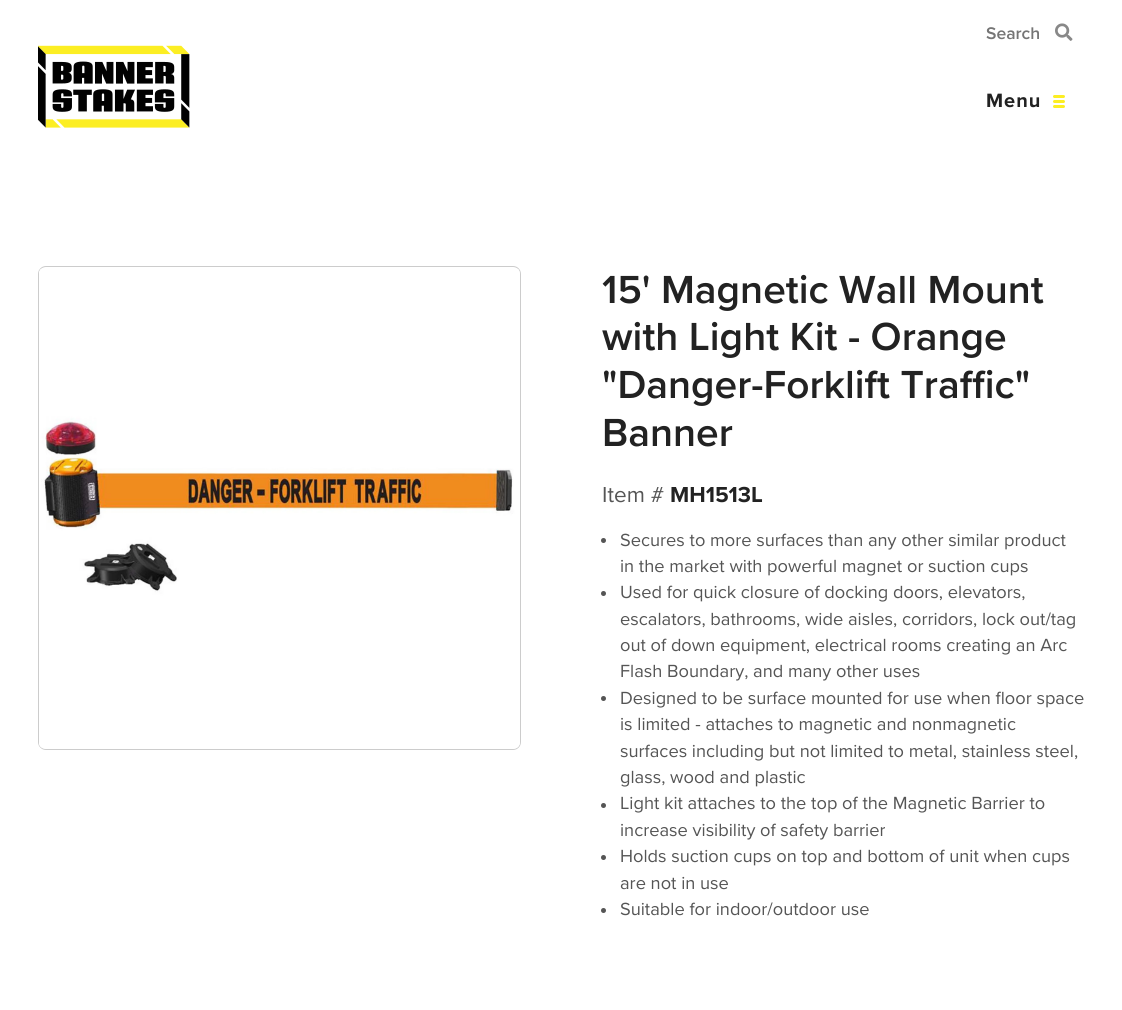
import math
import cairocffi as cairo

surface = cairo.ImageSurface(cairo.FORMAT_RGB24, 1122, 1010)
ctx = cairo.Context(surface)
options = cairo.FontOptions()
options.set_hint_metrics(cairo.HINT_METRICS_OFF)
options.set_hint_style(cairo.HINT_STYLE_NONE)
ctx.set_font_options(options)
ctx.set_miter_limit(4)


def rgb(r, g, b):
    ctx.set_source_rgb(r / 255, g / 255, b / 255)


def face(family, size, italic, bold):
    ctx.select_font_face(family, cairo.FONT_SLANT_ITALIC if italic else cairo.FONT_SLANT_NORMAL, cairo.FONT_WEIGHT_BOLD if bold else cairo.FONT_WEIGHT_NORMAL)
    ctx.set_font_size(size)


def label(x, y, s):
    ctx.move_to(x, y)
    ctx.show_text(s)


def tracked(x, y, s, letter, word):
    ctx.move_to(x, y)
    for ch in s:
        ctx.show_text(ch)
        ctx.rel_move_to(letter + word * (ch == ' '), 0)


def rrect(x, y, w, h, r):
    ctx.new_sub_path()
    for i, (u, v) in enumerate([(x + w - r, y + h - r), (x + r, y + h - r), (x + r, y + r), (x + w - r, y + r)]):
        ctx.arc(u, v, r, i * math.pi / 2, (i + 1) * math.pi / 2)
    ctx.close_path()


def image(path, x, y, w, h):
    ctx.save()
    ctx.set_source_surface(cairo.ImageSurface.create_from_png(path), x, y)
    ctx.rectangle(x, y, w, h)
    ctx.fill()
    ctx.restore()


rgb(255, 255, 255)
ctx.paint()
face('Proxima Nova SemiBold', 17.5, 0, 0)
rgb(117, 117, 117)
label(986, 39, 'Search')
image('image0.png', 1055, 23, 18, 18)
image('image1.png', 38, 45, 152, 83)
face('Proxima Nova', 20, 0, 1)
rgb(34, 34, 34)
tracked(986, 107, 'Menu', 1, 0)
rgb(252, 238, 35)
rrect(1053, 100, 12, 3, 1.5)
ctx.fill()
rrect(1053, 95, 12, 3, 1.5)
ctx.fill()
rrect(1053, 105, 12, 3, 1.5)
ctx.fill()
rrect(38.5, 266.5, 482, 483, 7.5)
rgb(204, 204, 204)
ctx.set_line_width(1)
ctx.stroke()
image('image2.png', 39, 268, 481, 481)
face('Proxima Nova SemiBold', 40.6, 0, 0)
rgb(34, 34, 34)
label(602, 303, '15\' Magnetic Wall Mount')
label(602, 350, 'with Light Kit - Orange')
label(602, 398, '"Danger-Forklift Traffic"')
label(602, 446, 'Banner')
face('Proxima Nova', 22.5, 0, 0)
rgb(85, 85, 85)
label(602, 502, 'Item #')
face('Proxima Nova', 22.5, 0, 1)
rgb(34, 34, 34)
label(670, 502, 'MH1513L')
rgb(85, 85, 85)
ctx.new_path()
ctx.arc(603.5, 540.5, 2.5, 0, 2 * math.pi)
ctx.fill()
face('Proxima Nova', 18.25, 0, 0)
label(620, 546, 'Secures to more surfaces than any other similar product')
label(620, 572, 'in the market with powerful magnet or suction cups')
ctx.new_path()
ctx.arc(603.5, 593.5, 2.5, 0, 2 * math.pi)
ctx.fill()
label(620, 598, 'Used for quick closure of docking doors, elevators,')
label(620, 625, 'escalators, bathrooms, wide aisles, corridors, lock out/tag')
label(620, 651, 'out of down equipment, electrical rooms creating an Arc')
label(620, 677, 'Flash Boundary, and many other uses')
ctx.new_path()
ctx.arc(603.5, 698.5, 2.5, 0, 2 * math.pi)
ctx.fill()
label(620, 704, 'Designed to be surface mounted for use when floor space')
label(620, 730, 'is limited - attaches to magnetic and nonmagnetic')
label(620, 757, 'surfaces including but not limited to metal, stainless steel,')
label(620, 783, 'glass, wood and plastic')
ctx.new_path()
ctx.arc(603.5, 805.5, 2.5, 0, 2 * math.pi)
ctx.fill()
label(620, 809, 'Light kit attaches to the top of the Magnetic Barrier to')
label(620, 836, 'increase visibility of safety barrier')
ctx.new_path()
ctx.arc(603.5, 857.5, 2.5, 0, 2 * math.pi)
ctx.fill()
label(620, 862, 'Holds suction cups on top and bottom of unit when cups')
label(620, 889, 'are not in use')
ctx.new_path()
ctx.arc(603.5, 910.5, 2.5, 0, 2 * math.pi)
ctx.fill()
label(620, 915, 'Suitable for indoor/outdoor use')
surface.write_to_png('render.png')
